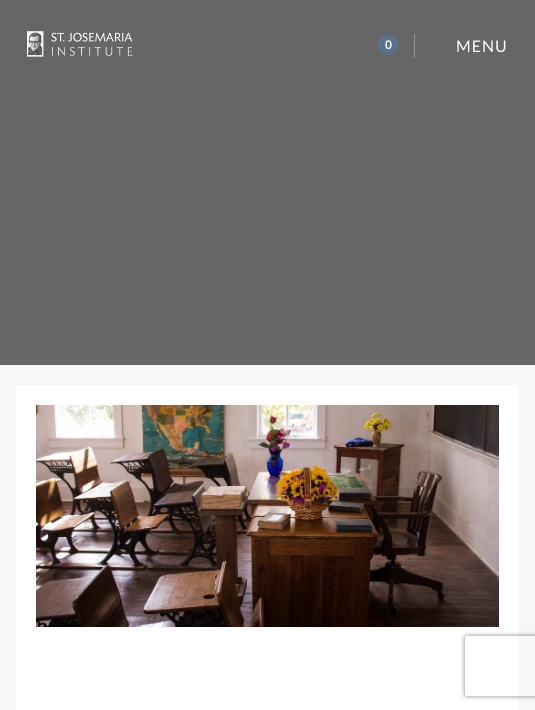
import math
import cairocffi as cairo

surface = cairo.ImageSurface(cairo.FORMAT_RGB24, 535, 710)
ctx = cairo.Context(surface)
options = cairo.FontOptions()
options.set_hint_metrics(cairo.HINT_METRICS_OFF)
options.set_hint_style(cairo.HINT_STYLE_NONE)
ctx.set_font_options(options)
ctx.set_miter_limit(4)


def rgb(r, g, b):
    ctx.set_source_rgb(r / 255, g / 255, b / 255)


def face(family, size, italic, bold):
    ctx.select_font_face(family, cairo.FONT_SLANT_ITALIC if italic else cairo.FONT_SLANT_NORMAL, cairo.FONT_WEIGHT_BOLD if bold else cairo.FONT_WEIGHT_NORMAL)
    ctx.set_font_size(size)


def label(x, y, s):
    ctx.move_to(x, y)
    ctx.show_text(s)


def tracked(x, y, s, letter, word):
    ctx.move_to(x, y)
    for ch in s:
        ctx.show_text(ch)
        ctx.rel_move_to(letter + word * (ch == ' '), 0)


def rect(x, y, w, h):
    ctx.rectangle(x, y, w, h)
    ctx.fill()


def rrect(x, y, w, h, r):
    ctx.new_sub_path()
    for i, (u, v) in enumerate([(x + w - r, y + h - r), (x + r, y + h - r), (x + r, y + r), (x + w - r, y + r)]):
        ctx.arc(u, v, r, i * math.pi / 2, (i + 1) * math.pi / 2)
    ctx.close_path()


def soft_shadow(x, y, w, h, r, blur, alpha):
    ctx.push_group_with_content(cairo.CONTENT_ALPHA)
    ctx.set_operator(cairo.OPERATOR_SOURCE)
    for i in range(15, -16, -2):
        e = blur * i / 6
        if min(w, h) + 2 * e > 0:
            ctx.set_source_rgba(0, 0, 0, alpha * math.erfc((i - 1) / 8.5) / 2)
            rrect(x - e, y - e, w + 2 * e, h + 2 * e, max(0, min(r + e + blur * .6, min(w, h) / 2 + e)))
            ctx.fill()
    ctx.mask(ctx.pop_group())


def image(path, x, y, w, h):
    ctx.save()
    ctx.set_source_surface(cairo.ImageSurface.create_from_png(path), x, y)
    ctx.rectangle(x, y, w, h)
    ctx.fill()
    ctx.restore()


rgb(247, 247, 247)
ctx.paint()
rgb(102, 102, 102)
rect(0, 0, 535, 365)
image('image0.png', 27, 31, 106, 26)
rgb(148, 148, 148)
rect(414, 34, 1, 24)
rgb(88, 113, 143)
ctx.arc(388, 45, 10, 0, 2 * math.pi)
ctx.fill()
face('Lato', 12, 0, 1)
rgb(255, 255, 255)
label(385, 49, '0')
face('Lato', 16, 0, 0)
tracked(456, 52, 'MENU', 1, 0)
rect(16, 385, 503, 325)
image('image1.png', 36, 405, 463, 222)
ctx.save()
ctx.set_fill_rule(cairo.FILL_RULE_EVEN_ODD)
ctx.new_path()
ctx.move_to(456, 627)
ctx.line_to(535, 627)
ctx.line_to(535, 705)
ctx.line_to(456, 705)
ctx.close_path()
ctx.move_to(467, 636)
ctx.line_to(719, 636)
ctx.curve_to(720, 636, 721, 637, 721, 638)
ctx.line_to(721, 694)
ctx.curve_to(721, 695, 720, 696, 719, 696)
ctx.line_to(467, 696)
ctx.curve_to(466, 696, 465, 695, 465, 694)
ctx.line_to(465, 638)
ctx.curve_to(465, 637, 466, 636, 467, 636)
ctx.close_path()
ctx.clip()
rgb(128, 128, 128)
soft_shadow(465, 636, 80, 60, 2, 2.5, 1)
ctx.restore()
surface.write_to_png('render.png')
